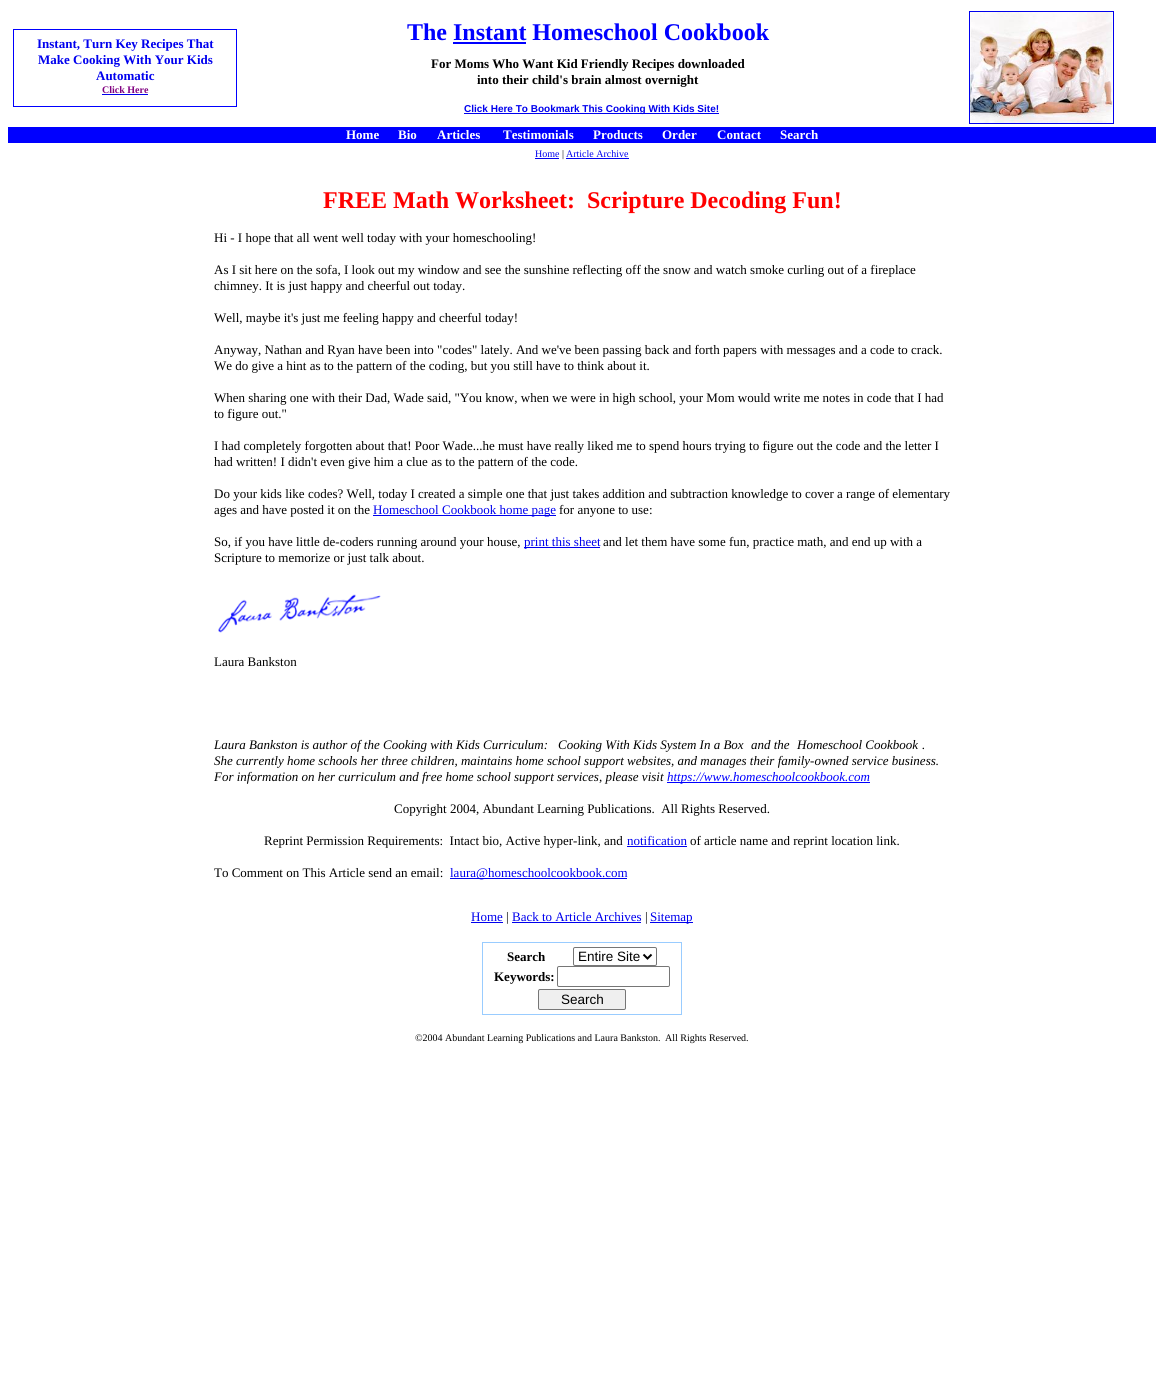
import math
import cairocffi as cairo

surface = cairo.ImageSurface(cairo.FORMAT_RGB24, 1164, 1376)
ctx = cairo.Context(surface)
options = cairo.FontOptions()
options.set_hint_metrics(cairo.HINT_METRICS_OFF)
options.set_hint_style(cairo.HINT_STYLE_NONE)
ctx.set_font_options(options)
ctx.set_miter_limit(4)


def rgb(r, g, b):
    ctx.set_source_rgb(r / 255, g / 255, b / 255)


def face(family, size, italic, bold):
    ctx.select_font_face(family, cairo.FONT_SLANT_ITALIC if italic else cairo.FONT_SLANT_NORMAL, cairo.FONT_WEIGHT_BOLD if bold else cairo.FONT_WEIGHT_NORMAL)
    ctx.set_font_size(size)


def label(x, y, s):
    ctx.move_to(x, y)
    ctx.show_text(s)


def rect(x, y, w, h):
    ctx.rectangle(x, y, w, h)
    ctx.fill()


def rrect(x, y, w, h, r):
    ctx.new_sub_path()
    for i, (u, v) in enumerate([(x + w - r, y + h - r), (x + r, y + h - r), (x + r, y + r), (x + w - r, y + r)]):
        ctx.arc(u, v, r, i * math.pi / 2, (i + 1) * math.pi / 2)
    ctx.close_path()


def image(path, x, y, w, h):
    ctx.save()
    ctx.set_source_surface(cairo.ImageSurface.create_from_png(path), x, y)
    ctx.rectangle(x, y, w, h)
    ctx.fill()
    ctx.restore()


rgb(255, 255, 255)
ctx.paint()
rgb(0, 0, 255)
rect(13, 29, 224, 1)
rect(236, 29, 1, 78)
rect(13, 106, 224, 1)
rect(13, 29, 1, 78)
face('Liberation Serif', 13, 0, 1)
rgb(0, 0, 238)
label(37, 48, 'Instant, Turn Key Recipes That')
label(38, 64, 'Make Cooking With Your Kids')
label(96, 80, 'Automatic')
face('Liberation Serif', 10, 0, 1)
rgb(128, 0, 128)
label(102, 93, 'Click Here')
rgb(0, 0, 238)
rect(102, 94, 46, 1)
face('Liberation Serif', 24, 0, 1)
rgb(0, 0, 255)
label(407, 40, 'The Instant Homeschool Cookbook')
rect(453, 42, 73, 2)
face('Liberation Serif', 13, 0, 1)
rgb(0, 0, 0)
label(431, 68, 'For Moms Who Want Kid Friendly Recipes downloaded')
label(477, 84, 'into their child\'s brain almost overnight')
rgb(0, 0, 238)
rect(464, 113, 255, 1)
face('Liberation Sans', 10, 0, 1)
label(464, 112, 'Click Here To Bookmark This Cooking With Kids Site!')
ctx.rectangle(969.5, 11.5, 144, 112)
ctx.set_line_width(1)
ctx.stroke()
image('image0.png', 970, 12, 143, 111)
rgb(0, 0, 255)
rect(8, 127, 1148, 16)
face('Liberation Serif', 13, 0, 1)
rgb(255, 255, 255)
label(346, 139, 'Home')
label(398, 139, 'Bio')
label(437, 139, 'Articles')
label(503, 139, 'Testimonials')
label(593, 139, 'Products')
label(662, 139, 'Order')
label(717, 139, 'Contact')
label(780, 139, 'Search')
face('Liberation Serif', 10, 0, 0)
rgb(0, 0, 238)
label(535, 157, 'Home')
rect(535, 158, 24, 1)
rgb(0, 0, 0)
label(562, 157, '|')
rgb(0, 0, 238)
rect(566, 158, 63, 1)
label(566, 157, 'Article Archive')
face('Liberation Serif', 24, 0, 1)
rgb(255, 0, 0)
label(323, 208, 'FREE Math Worksheet:  Scripture Decoding Fun!')
face('Liberation Serif', 13, 0, 0)
rgb(0, 0, 0)
label(214, 242, 'Hi - I hope that all went well today with your homeschooling!')
label(214, 274, 'As I sit here on the sofa, I look out my window and see the sunshine reflecting off the snow and watch smoke curling out of a fireplace')
label(214, 290, 'chimney. It is just happy and cheerful out today.')
label(214, 322, 'Well, maybe it\'s just me feeling happy and cheerful today!')
label(214, 354, 'Anyway, Nathan and Ryan have been into "codes" lately. And we\'ve been passing back and forth papers with messages and a code to crack.')
label(214, 370, 'We do give a hint as to the pattern of the coding, but you still have to think about it.')
label(214, 402, 'When sharing one with their Dad, Wade said, "You know, when we were in high school, your Mom would write me notes in code that I had')
label(214, 418, 'to figure out."')
label(214, 450, 'I had completely forgotten about that! Poor Wade...he must have really liked me to spend hours trying to figure out the code and the letter I')
label(214, 466, 'had written! I didn\'t even give him a clue as to the pattern of the code.')
label(214, 498, 'Do your kids like codes? Well, today I created a simple one that just takes addition and subtraction knowledge to cover a range of elementary')
label(214, 514, 'ages and have posted it on the')
rgb(0, 0, 238)
rect(373, 515, 183, 1)
label(373, 514, 'Homeschool Cookbook home page')
rgb(0, 0, 0)
label(559, 514, 'for anyone to use:')
label(214, 546, 'So, if you have little de-coders running around your house,')
rgb(0, 0, 238)
rect(524, 547, 76, 1)
label(524, 546, 'print this sheet')
rgb(0, 0, 0)
label(603, 546, 'and let them have some fun, practice math, and end up with a')
label(214, 562, 'Scripture to memorize or just talk about.')
image('image1.png', 218, 594, 163, 39)
label(214, 666, 'Laura Bankston')
face('Liberation Serif', 13, 1, 0)
label(214, 749, 'Laura Bankston is author of the Cooking with Kids Curriculum:')
label(558, 749, 'Cooking With Kids System In a Box')
label(751, 749, 'and the')
label(797, 749, 'Homeschool Cookbook')
label(922, 749, '.')
label(214, 765, 'She currently home schools her three children, maintains home school support websites, and manages their family-owned service business.')
label(214, 781, 'For information on her curriculum and free home school support services, please visit')
rgb(0, 0, 255)
rect(667, 782, 203, 1)
label(667, 781, 'https://www.homeschoolcookbook.com')
face('Liberation Serif', 13, 0, 0)
rgb(0, 0, 0)
label(394, 813, 'Copyright 2004, Abundant Learning Publications.  All Rights Reserved.')
label(264, 845, 'Reprint Permission Requirements:  Intact bio, Active hyper-link, and')
rgb(0, 0, 238)
rect(627, 846, 60, 1)
label(627, 845, 'notification')
rgb(0, 0, 0)
label(690, 845, 'of article name and reprint location link.')
label(214, 877, 'To Comment on This Article send an email:')
rgb(0, 0, 238)
rect(450, 878, 177, 1)
label(450, 877, 'laura@homeschoolcookbook.com')
label(471, 921, 'Home')
rect(471, 922, 32, 1)
rgb(0, 0, 0)
label(506, 921, '|')
rgb(0, 0, 238)
label(512, 921, 'Back to Article Archives')
rect(512, 922, 129, 1)
rgb(0, 0, 0)
label(645, 921, '|')
rgb(0, 0, 238)
rect(650, 922, 43, 1)
label(650, 921, 'Sitemap')
rgb(153, 204, 255)
rect(482, 942, 200, 1)
rect(681, 942, 1, 73)
rect(482, 1014, 200, 1)
rect(482, 942, 1, 73)
face('Liberation Serif', 13, 0, 1)
rgb(0, 0, 0)
label(507, 961, 'Search')
rrect(573.5, 947.5, 83, 18, 1.5)
rgb(118, 118, 118)
ctx.stroke()
ctx.new_path()
ctx.move_to(643.5, 954.5)
ctx.line_to(647.5, 958.5)
ctx.line_to(651.5, 954.5)
rgb(0, 0, 0)
ctx.set_line_width(2)
ctx.stroke()
face('Liberation Sans', 13.5, 0, 0)
label(578, 961, 'Entire Site')
face('Liberation Serif', 13, 0, 1)
label(494, 981, 'Keywords:')
rrect(557.5, 966.5, 112, 20, 1.5)
rgb(118, 118, 118)
ctx.set_line_width(1)
ctx.stroke()
rgb(239, 239, 239)
rrect(538.5, 989.5, 87, 20, 1.5)
ctx.fill_preserve()
rgb(118, 118, 118)
ctx.stroke()
face('Liberation Sans', 13.5, 0, 0)
rgb(0, 0, 0)
label(561, 1004, 'Search')
face('Liberation Serif', 10, 0, 0)
label(415, 1041, '©2004 Abundant Learning Publications and Laura Bankston.')
label(665, 1041, 'All Rights Reserved.')
surface.write_to_png('render.png')
